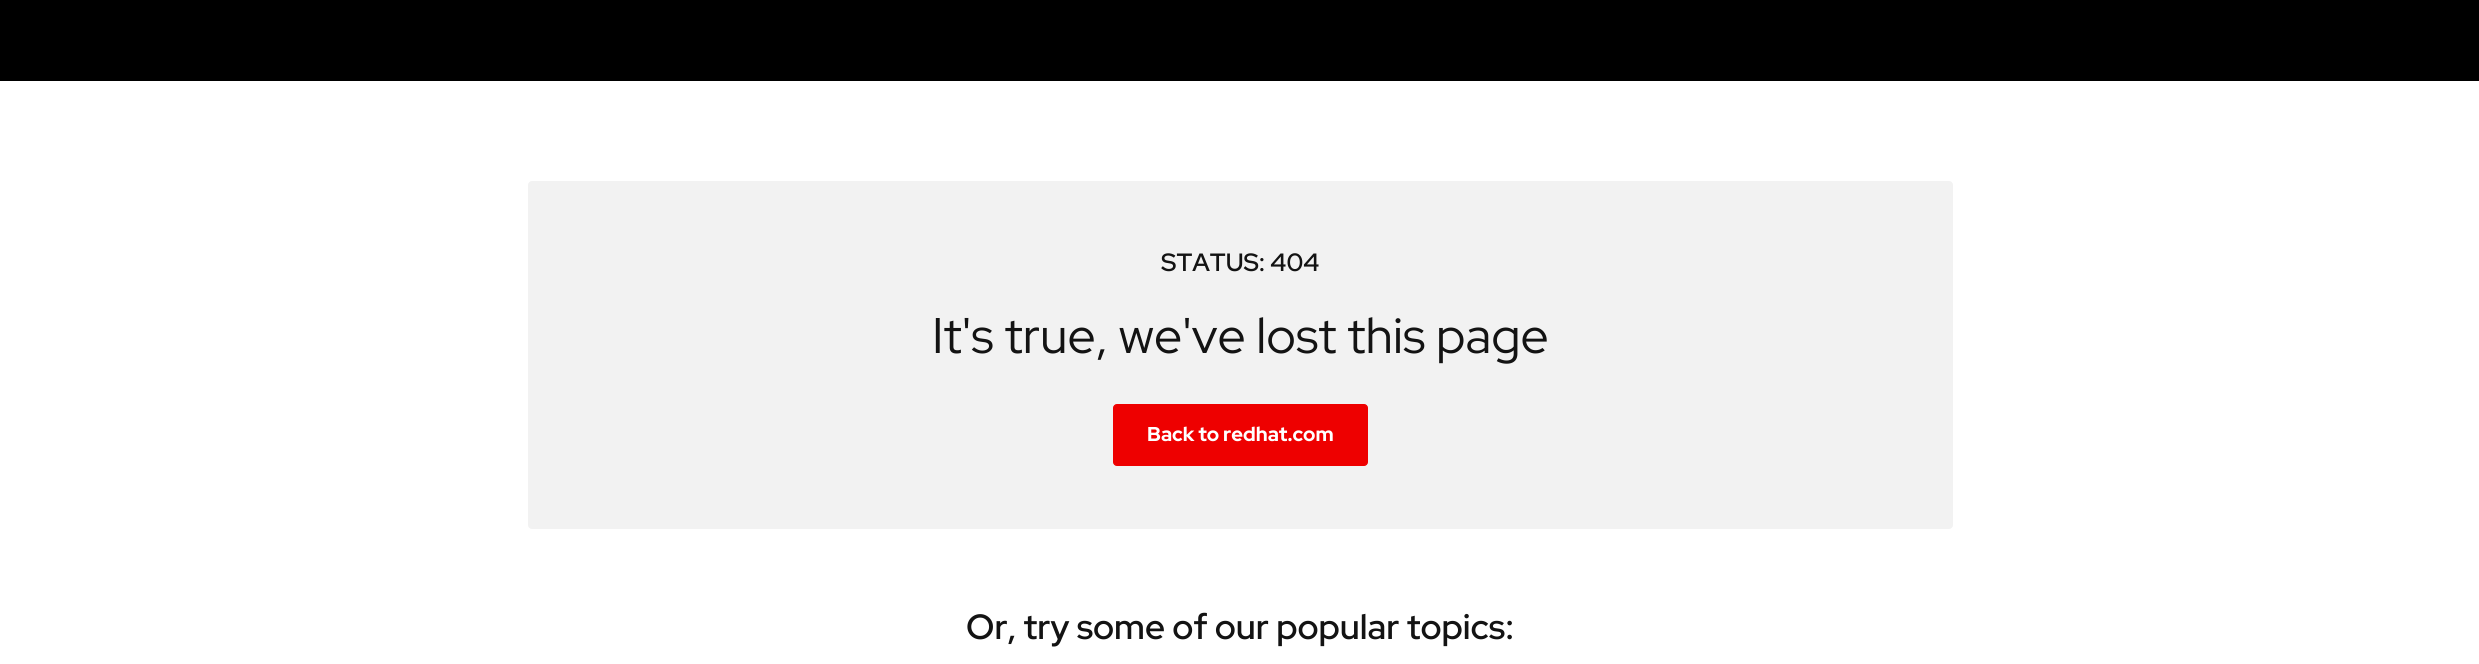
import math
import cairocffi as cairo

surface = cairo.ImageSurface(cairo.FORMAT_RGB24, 2479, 664)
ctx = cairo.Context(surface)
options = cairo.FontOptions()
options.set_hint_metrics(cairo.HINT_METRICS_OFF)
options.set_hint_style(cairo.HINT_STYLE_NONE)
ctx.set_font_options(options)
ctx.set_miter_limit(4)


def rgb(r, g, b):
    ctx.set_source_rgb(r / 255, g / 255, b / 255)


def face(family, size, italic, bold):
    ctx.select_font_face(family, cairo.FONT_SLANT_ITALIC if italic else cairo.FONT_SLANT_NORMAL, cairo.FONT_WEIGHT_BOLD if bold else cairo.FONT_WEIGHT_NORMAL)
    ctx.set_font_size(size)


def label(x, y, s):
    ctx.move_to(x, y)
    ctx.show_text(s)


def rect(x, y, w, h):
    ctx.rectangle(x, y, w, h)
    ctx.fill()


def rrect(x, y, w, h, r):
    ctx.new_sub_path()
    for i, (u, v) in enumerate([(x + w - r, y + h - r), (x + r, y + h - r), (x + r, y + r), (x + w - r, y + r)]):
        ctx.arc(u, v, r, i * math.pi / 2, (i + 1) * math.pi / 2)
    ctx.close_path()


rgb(255, 255, 255)
ctx.paint()
rgb(0, 0, 0)
rect(0, 0, 2479, 81)
rgb(242, 242, 242)
rrect(528, 181, 1425, 348, 4)
ctx.fill()
face('Red Hat Display', 25, 0, 0)
rgb(19, 19, 19)
label(1161, 271, 'STATUS: 404')
face('Red Hat Display Light', 50, 0, 0)
label(932, 353, 'It\'s true, we\'ve lost this page')
rgb(238, 0, 0)
rrect(1113.5, 404.5, 254, 61, 3.5)
ctx.fill_preserve()
ctx.set_line_width(1)
ctx.stroke()
face('Red Hat Display', 20, 0, 1)
rgb(255, 255, 255)
label(1147, 441, 'Back to redhat.com')
face('Red Hat Display', 35, 0, 0)
rgb(19, 19, 19)
label(966, 639, 'Or, try some of our popular topics:')
surface.write_to_png('render.png')
